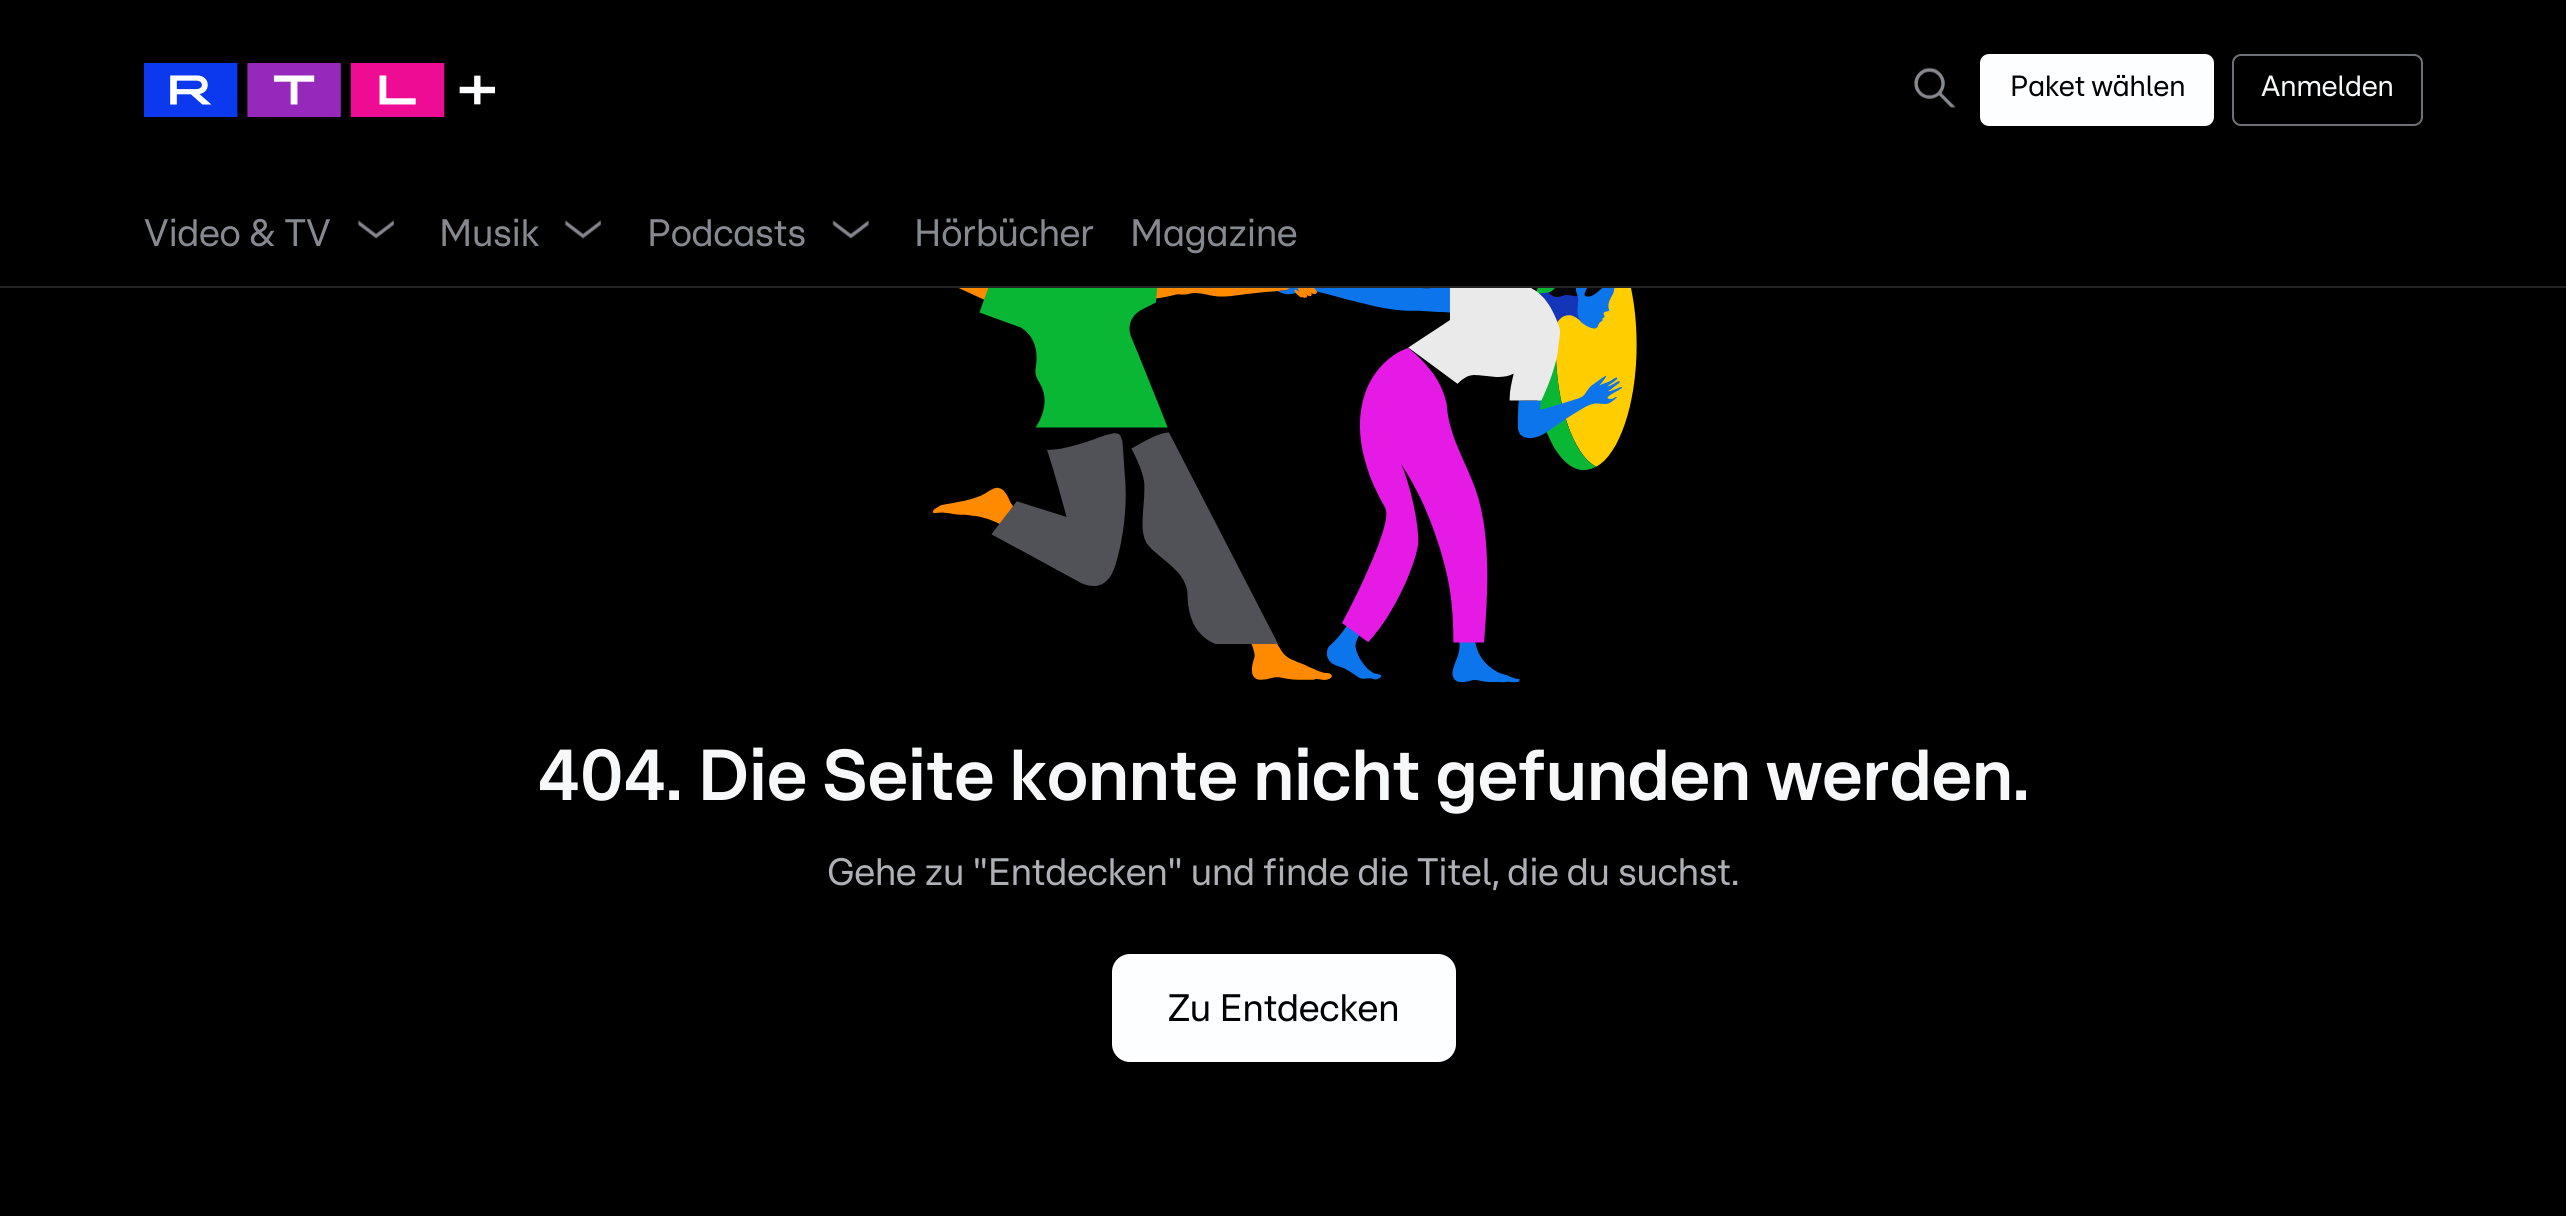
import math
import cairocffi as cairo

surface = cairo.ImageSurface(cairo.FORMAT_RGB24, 2566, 1216)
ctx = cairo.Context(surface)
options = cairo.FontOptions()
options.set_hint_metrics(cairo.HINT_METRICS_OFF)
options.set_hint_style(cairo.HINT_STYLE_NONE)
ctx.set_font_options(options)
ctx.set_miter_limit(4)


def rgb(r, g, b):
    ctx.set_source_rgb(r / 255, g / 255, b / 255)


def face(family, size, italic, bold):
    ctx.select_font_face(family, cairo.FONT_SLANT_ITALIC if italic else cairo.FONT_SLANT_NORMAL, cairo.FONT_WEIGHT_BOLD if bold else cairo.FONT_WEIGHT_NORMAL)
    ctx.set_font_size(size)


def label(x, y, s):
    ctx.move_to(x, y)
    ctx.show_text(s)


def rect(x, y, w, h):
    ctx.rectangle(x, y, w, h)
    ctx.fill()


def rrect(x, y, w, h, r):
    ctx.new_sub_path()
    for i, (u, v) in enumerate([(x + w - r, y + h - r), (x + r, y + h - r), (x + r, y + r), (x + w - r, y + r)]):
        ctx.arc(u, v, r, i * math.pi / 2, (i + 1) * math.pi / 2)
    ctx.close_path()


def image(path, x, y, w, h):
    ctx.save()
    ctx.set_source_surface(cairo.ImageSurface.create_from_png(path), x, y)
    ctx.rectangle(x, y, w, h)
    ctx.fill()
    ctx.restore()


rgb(0, 0, 0)
ctx.paint()
rgb(34, 35, 37)
rect(0, 286, 2566, 2)
image('image0.png', 144, 63, 351, 54)
image('image1.png', 1914, 67, 42, 41)
rgb(253, 254, 255)
rrect(1981, 55, 232, 70, 8)
ctx.fill_preserve()
ctx.stroke()
face('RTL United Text', 29.25, 0, 0)
rgb(2, 2, 3)
label(2010, 96, 'Paket wählen')
rrect(2233, 55, 189, 70, 8)
rgb(110, 113, 117)
ctx.stroke()
rgb(247, 248, 249)
label(2261, 96, 'Anmelden')
face('RTL United Text', 38.25, 0, 0)
rgb(135, 137, 145)
label(144, 246, 'Video & TV')
image('image2.png', 357, 220, 37, 19)
label(439, 246, 'Musik')
image('image2.png', 564, 220, 37, 19)
label(647, 246, 'Podcasts')
image('image3.png', 832, 220, 37, 19)
label(914, 246, 'Hörbücher')
label(1130, 246, 'Magazine')
image('image4.png', 932, 288, 705, 395)
face('RTL United Text', 72, 0, 1)
rgb(247, 248, 249)
label(538, 800, '404. Die Seite konnte nicht gefunden werden.')
face('RTL United Text', 38.25, 0, 0)
rgb(175, 176, 182)
label(827, 885, 'Gehe zu "Entdecken" und finde die Titel, die du suchst.')
rgb(253, 254, 255)
rrect(1113, 955, 342, 106, 17)
ctx.fill_preserve()
ctx.stroke()
rgb(2, 2, 3)
label(1168, 1021, 'Zu Entdecken')
surface.write_to_png('render.png')
